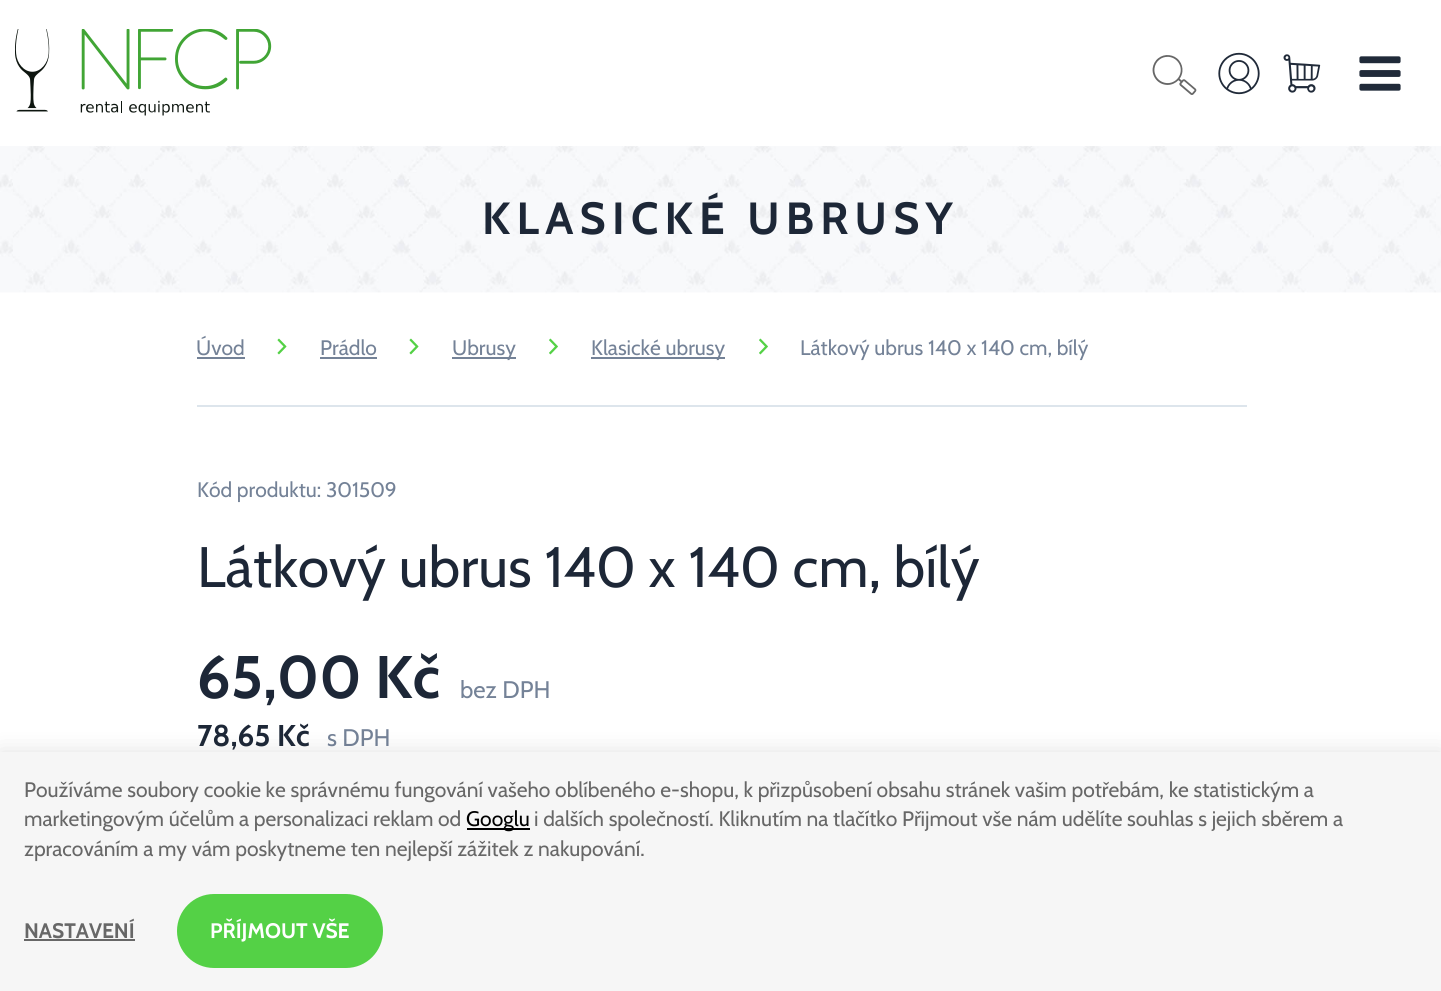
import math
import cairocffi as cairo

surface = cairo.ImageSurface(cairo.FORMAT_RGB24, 1441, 991)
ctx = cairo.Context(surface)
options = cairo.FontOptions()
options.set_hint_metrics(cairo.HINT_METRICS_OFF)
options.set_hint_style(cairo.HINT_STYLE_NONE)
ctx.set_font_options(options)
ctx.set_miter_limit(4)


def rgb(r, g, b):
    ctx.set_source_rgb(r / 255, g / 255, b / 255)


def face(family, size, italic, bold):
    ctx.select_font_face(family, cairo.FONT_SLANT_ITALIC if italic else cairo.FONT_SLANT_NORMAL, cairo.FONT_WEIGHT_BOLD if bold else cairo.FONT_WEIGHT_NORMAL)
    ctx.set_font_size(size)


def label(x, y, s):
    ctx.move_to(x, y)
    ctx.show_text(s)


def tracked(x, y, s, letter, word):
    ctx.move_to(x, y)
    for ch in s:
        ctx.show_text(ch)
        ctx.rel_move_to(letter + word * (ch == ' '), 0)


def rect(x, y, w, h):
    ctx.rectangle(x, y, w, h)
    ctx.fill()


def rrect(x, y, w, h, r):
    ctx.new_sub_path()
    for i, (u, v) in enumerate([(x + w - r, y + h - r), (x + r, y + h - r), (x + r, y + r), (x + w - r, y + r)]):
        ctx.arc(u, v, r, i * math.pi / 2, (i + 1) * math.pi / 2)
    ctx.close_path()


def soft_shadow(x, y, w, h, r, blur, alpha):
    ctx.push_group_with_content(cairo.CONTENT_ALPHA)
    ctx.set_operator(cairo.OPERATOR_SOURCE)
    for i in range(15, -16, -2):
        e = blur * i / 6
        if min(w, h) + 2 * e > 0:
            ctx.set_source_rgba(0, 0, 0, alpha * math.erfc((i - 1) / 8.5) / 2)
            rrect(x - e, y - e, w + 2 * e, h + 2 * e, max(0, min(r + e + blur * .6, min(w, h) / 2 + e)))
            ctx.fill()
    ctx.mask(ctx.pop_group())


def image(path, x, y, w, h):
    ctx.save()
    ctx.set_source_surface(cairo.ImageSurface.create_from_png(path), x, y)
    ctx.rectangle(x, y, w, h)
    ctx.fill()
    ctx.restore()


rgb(255, 255, 255)
ctx.paint()
image('image0.png', 15, 29, 257, 87)
image('image1.png', 1152, 55, 45, 40)
image('image2.png', 1218, 52, 42, 43)
image('image3.png', 1283, 54, 38, 39)
image('image4.png', 1359, 56, 42, 35)
image('image5.png', 0, 146, 1441, 147)
face('Cabin', 45, 0, 1)
rgb(29, 39, 55)
tracked(482, 234, 'KLASICKÉ UBRUSY', 6.25, 0)
rgb(221, 229, 236)
rect(197, 405, 1050, 2)
face('Cabin', 21, 0, 0)
rgb(116, 130, 151)
label(196, 355, 'Úvod')
rect(197, 357, 48, 2)
image('image6.png', 277, 338, 10, 17)
label(320, 355, 'Prádlo')
rect(320, 357, 57, 2)
image('image6.png', 409, 338, 10, 17)
rect(452, 357, 64, 2)
label(452, 355, 'Ubrusy')
image('image7.png', 549, 338, 9, 17)
rect(591, 357, 134, 2)
label(591, 355, 'Klasické ubrusy')
image('image7.png', 759, 338, 9, 17)
label(800, 355, 'Látkový ubrus 140 x 140 cm, bílý')
label(197, 497, 'Kód produktu: 301509')
face('Cabin', 57, 0, 0)
rgb(29, 39, 55)
label(197, 587, 'Látkový ubrus 140 x 140 cm, bílý')
face('Cabin', 60, 0, 1)
label(197, 698, '65,00 Kč')
face('Cabin', 24, 0, 0)
rgb(116, 130, 151)
label(460, 698, 'bez DPH')
face('Cabin', 30, 0, 1)
rgb(29, 39, 55)
label(197, 746, '78,65 Kč')
face('Cabin', 24, 0, 0)
rgb(116, 130, 151)
label(327, 746, 's DPH')
rgb(55, 55, 55)
soft_shadow(0, 752, 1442, 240, 0, 11, 0.15)
rgb(246, 246, 246)
rect(0, 752, 1441, 239)
face('Cabin', 21, 0, 0)
rgb(103, 103, 103)
label(24, 797, 'Používáme soubory cookie ke správnému fungování vašeho oblíbeného e-shopu, k přizpůsobení obsahu stránek vašim potřebám, ke statistickým a')
label(24, 826, 'marketingovým účelům a personalizaci reklam od')
rgb(0, 0, 0)
rect(467, 828, 63, 2)
label(466, 826, 'Googlu')
rgb(103, 103, 103)
label(534, 826, 'i dalších společností. Kliknutím na tlačítko Přijmout vše nám udělíte souhlas s jejich sběrem a')
label(24, 856, 'zpracováním a my vám poskytneme ten nejlepší zážitek z nakupování.')
face('Cabin', 21, 0, 1)
label(24, 938, 'NASTAVENÍ')
rect(24, 939, 111, 2)
rgb(84, 209, 70)
rrect(178.5, 895.5, 203, 71, 35.5)
ctx.fill_preserve()
ctx.set_line_width(3)
ctx.stroke()
rgb(255, 255, 255)
label(210, 938, 'PŘÍJMOUT VŠE')
surface.write_to_png('render.png')
